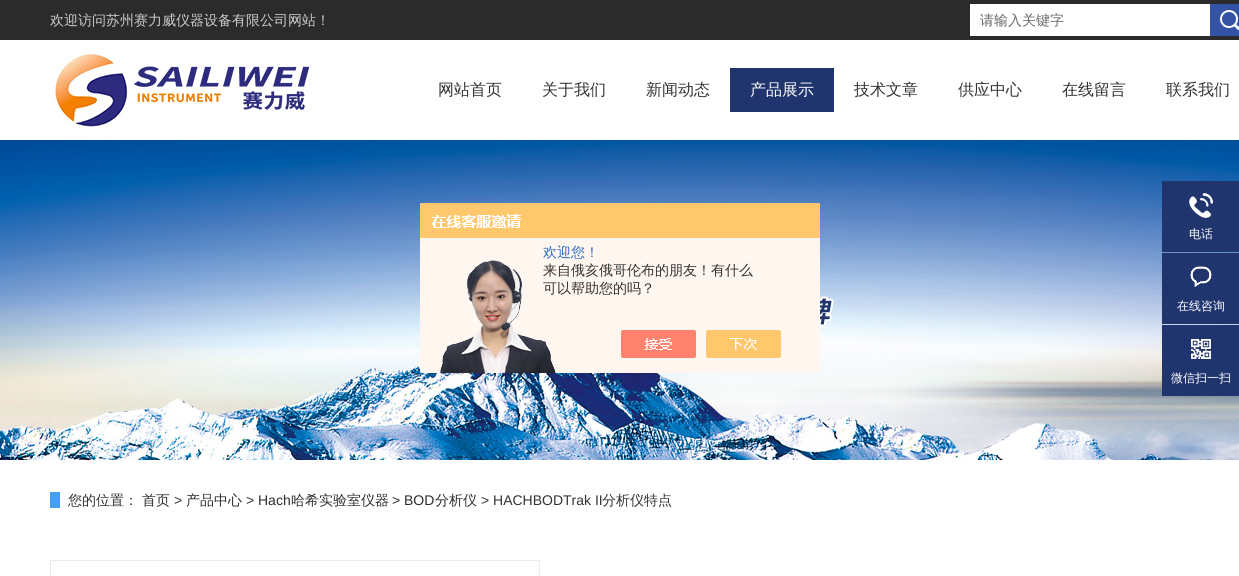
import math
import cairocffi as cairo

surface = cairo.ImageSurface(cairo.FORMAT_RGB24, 1239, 576)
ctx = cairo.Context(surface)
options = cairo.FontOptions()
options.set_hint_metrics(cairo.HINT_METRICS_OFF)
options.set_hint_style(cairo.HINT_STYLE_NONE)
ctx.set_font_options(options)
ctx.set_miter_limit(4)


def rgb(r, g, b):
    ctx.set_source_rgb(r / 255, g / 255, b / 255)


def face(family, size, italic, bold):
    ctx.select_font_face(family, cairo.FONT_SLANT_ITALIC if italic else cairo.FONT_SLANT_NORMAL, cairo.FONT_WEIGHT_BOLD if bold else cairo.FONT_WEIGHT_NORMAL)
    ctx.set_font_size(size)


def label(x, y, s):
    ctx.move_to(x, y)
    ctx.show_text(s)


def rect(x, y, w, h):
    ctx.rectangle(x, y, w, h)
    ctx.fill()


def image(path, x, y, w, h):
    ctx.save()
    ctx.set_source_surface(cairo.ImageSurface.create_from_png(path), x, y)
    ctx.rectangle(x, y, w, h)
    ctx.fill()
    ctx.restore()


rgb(255, 255, 255)
ctx.paint()
rgb(43, 43, 43)
rect(0, 0, 1239, 40)
face('WenQuanYi Zen Hei Medium', 14, 0, 0)
rgb(204, 204, 204)
label(50, 25, '欢迎访问苏州赛力威仪器设备有限公司网站！')
rgb(255, 255, 255)
rect(970, 4, 240, 32)
rgb(102, 102, 102)
label(980, 25, '请输入关键字')
rgb(52, 83, 165)
rect(1210, 4, 29, 32)
image('image0.png', 1220, 10, 19, 20)
image('image1.png', 53, 50, 256, 80)
face('WenQuanYi Zen Hei Medium', 16, 0, 0)
rgb(51, 51, 51)
label(438, 95, '网站首页')
label(542, 95, '关于我们')
label(646, 95, '新闻动态')
rgb(32, 53, 110)
rect(730, 68, 104, 44)
rgb(255, 255, 255)
label(750, 95, '产品展示')
rgb(51, 51, 51)
label(854, 95, '技术文章')
label(958, 95, '供应中心')
label(1062, 95, '在线留言')
label(1166, 95, '联系我们')
image('image2.png', 0, 140, 1239, 320)
image('image3.png', 420, 203, 400, 170)
face('WenQuanYi Zen Hei Medium', 14, 0, 0)
rgb(46, 110, 198)
label(543, 257, '欢迎您！')
rgb(51, 51, 51)
label(543, 275, '来自俄亥俄哥伦布的朋友！有什么')
label(543, 293, '可以帮助您的吗？')
rgb(32, 53, 110)
rect(1162, 181, 77, 71)
image('image4.png', 1189, 193, 24, 25)
face('WenQuanYi Zen Hei Medium', 12, 0, 0)
rgb(255, 255, 255)
label(1189, 238, '电话')
rgb(32, 53, 110)
rect(1162, 253, 77, 71)
image('image5.png', 1190, 266, 22, 22)
rgb(255, 255, 255)
label(1177, 310, '在线咨询')
rgb(32, 53, 110)
rect(1162, 325, 77, 71)
image('image6.png', 1191, 339, 20, 20)
rgb(255, 255, 255)
label(1171, 382, '微信扫一扫')
face('WenQuanYi Zen Hei Medium', 14, 0, 0)
rgb(51, 51, 51)
label(68, 505, '您的位置：')
rgb(70, 159, 247)
rect(50, 492, 10, 16)
rgb(45, 45, 46)
label(142, 505, '首页')
face('Liberation Sans', 14, 0, 0)
rgb(51, 51, 51)
label(174, 505, '>')
face('WenQuanYi Zen Hei Medium', 14, 0, 0)
rgb(45, 45, 46)
label(186, 505, '产品中心')
face('Liberation Sans', 14, 0, 0)
rgb(51, 51, 51)
label(246, 505, '>')
rgb(45, 45, 46)
label(258, 505, 'Hach')
face('WenQuanYi Zen Hei Medium', 14, 0, 0)
label(291, 505, '哈希实验室仪器')
face('Liberation Sans', 14, 0, 0)
rgb(51, 51, 51)
label(392, 505, '>')
rgb(45, 45, 46)
label(404, 505, 'BOD')
face('WenQuanYi Zen Hei Medium', 14, 0, 0)
label(435, 505, '分析仪')
face('Liberation Sans', 14, 0, 0)
rgb(51, 51, 51)
label(481, 505, '> HACHBODTrak II')
face('WenQuanYi Zen Hei Medium', 14, 0, 0)
label(602, 505, '分析仪特点')
ctx.rectangle(50.5, 560.5, 489, 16)
rgb(234, 234, 234)
ctx.set_line_width(1)
ctx.stroke()
surface.write_to_png('render.png')
